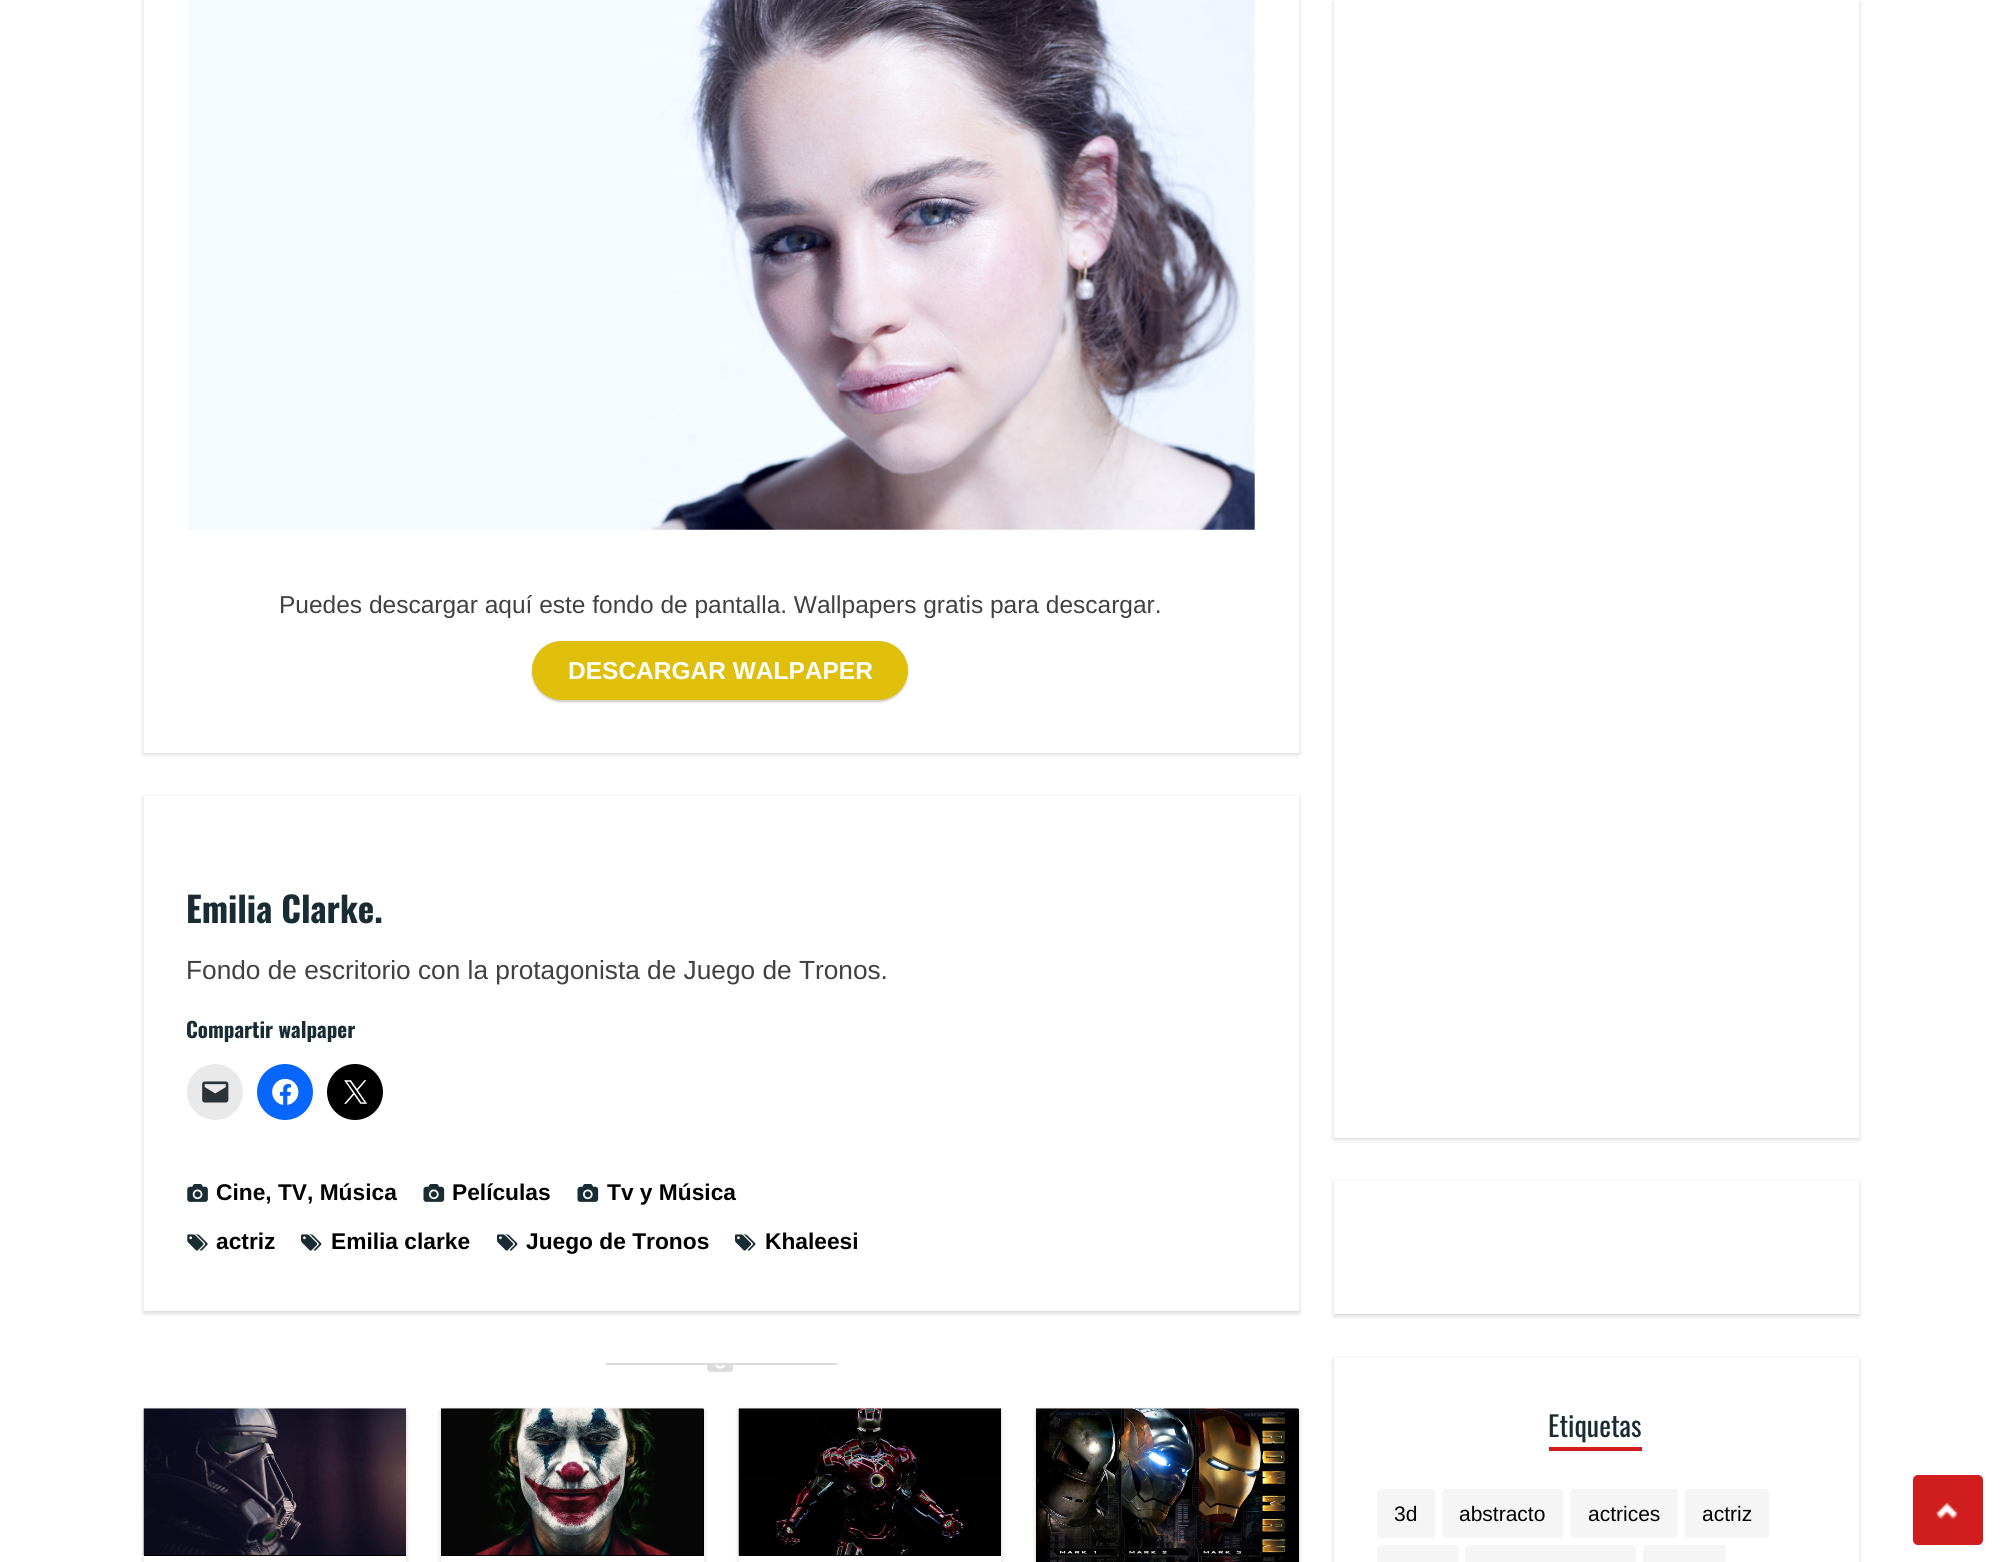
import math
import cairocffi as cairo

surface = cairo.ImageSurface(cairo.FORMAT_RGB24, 2000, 1562)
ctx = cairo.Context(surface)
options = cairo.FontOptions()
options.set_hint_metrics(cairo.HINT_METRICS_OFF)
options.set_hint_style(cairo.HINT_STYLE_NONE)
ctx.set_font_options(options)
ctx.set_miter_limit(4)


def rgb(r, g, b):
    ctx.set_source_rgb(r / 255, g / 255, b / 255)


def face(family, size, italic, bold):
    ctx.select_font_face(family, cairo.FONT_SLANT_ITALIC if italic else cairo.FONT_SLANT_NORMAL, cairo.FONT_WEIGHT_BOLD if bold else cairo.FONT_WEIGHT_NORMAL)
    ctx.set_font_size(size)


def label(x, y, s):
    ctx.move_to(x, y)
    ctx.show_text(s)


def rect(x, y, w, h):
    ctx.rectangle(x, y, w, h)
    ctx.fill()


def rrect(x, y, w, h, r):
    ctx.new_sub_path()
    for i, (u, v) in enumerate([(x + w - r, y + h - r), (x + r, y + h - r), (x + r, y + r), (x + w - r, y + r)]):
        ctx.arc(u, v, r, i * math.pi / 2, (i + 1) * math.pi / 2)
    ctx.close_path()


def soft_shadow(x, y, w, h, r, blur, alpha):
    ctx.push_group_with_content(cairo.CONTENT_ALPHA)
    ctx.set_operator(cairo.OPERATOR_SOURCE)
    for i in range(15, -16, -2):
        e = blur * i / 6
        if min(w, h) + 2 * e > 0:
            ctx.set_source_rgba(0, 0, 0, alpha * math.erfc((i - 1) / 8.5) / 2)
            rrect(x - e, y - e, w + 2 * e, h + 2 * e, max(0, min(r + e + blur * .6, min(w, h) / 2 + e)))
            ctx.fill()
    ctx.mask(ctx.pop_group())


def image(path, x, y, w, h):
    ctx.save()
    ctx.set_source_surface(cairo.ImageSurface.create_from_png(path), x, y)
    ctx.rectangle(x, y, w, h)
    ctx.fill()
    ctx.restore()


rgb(255, 255, 255)
ctx.paint()
rgb(34, 25, 25)
soft_shadow(144, -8, 1155, 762, 0, 2.5, 0.2)
rgb(255, 255, 255)
rect(144, 0, 1155, 753)
image('image0.png', 187, 0, 1068, 530)
face('Liberation Sans', 24.5, 0, 0)
rgb(65, 65, 65)
label(279, 613, 'Puedes descargar aquí este fondo de pantalla. Wallpapers gratis para descargar.')
rgb(162, 152, 143)
soft_shadow(532, 642, 376, 60, 30, 1, 0.5)
rgb(224, 191, 10)
rrect(532, 641, 376, 59, 29.5)
ctx.fill()
face('Liberation Sans', 24.5, 0, 1)
rgb(255, 255, 255)
label(568, 679, 'DESCARGAR WALPAPER')
rgb(34, 25, 25)
soft_shadow(144, 798, 1155, 515, 0, 2.5, 0.2)
rgb(255, 255, 255)
rect(144, 796, 1155, 515)
face('Oswald', 35, 0, 1)
rgb(25, 43, 51)
label(186, 923, 'Emilia Clarke.')
face('Liberation Sans', 26.25, 0, 0)
rgb(65, 65, 65)
label(186, 979, 'Fondo de escritorio con la protagonista de Juego de Tronos.')
face('Oswald', 21, 0, 1)
rgb(25, 43, 51)
label(186, 1038, 'Compartir walpaper')
rgb(233, 233, 233)
ctx.new_path()
ctx.arc(215, 1092, 28, 0, 2 * math.pi)
ctx.fill()
image('image1.png', 202, 1081, 27, 22)
rgb(8, 102, 255)
ctx.arc(285, 1092, 28, 0, 2 * math.pi)
ctx.fill()
image('image2.png', 272, 1078, 27, 27)
rgb(0, 0, 0)
ctx.arc(355, 1092, 28, 0, 2 * math.pi)
ctx.fill()
image('image3.png', 344, 1080, 24, 24)
image('image4.png', 187, 1184, 21, 18)
face('Liberation Sans', 22.75, 0, 1)
label(216, 1200, 'Cine, TV, Música')
image('image5.png', 423, 1184, 22, 18)
label(452, 1200, 'Películas')
image('image5.png', 577, 1184, 22, 18)
label(607, 1200, 'Tv y Música')
image('image6.png', 187, 1234, 21, 17)
label(216, 1249, 'actriz')
image('image7.png', 301, 1234, 21, 17)
label(331, 1249, 'Emilia clarke')
image('image8.png', 497, 1234, 21, 17)
label(526, 1249, 'Juego de Tronos')
image('image7.png', 735, 1234, 21, 17)
label(765, 1249, 'Khaleesi')
rgb(221, 221, 221)
rect(606, 1363, 231, 2)
image('image9.png', 707, 1365, 27, 7)
ctx.save()
ctx.set_fill_rule(cairo.FILL_RULE_EVEN_ODD)
ctx.new_path()
ctx.move_to(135, 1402)
ctx.line_to(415, 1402)
ctx.line_to(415, 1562)
ctx.line_to(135, 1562)
ctx.close_path()
ctx.move_to(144, 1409)
ctx.line_to(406, 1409)
ctx.line_to(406, 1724)
ctx.line_to(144, 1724)
ctx.close_path()
ctx.clip()
rgb(34, 25, 25)
soft_shadow(144, 1411, 262, 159, 0, 2.5, 0.2)
ctx.restore()
rgb(0, 0, 0)
rect(144, 1555, 262, 1)
image('image10.png', 143, 1408, 263, 148)
rgb(34, 25, 25)
soft_shadow(441, 1411, 263, 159, 0, 2.5, 0.2)
rgb(255, 255, 255)
rect(441, 1556, 263, 6)
rgb(0, 0, 0)
rect(441, 1409, 263, 147)
image('image11.png', 441, 1408, 263, 148)
ctx.save()
ctx.set_fill_rule(cairo.FILL_RULE_EVEN_ODD)
ctx.new_path()
ctx.move_to(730, 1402)
ctx.line_to(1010, 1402)
ctx.line_to(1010, 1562)
ctx.line_to(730, 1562)
ctx.close_path()
ctx.move_to(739, 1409)
ctx.line_to(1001, 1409)
ctx.line_to(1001, 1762)
ctx.line_to(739, 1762)
ctx.close_path()
ctx.clip()
rgb(34, 25, 25)
soft_shadow(739, 1411, 262, 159, 0, 2.5, 0.2)
ctx.restore()
rect(739, 1555, 262, 1)
image('image12.png', 738, 1408, 263, 148)
rgb(34, 25, 25)
soft_shadow(1036, 1411, 263, 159, 0, 2.5, 0.2)
rgb(0, 0, 0)
rect(1298, 1409, 1, 153)
image('image13.png', 1036, 1408, 263, 154)
rgb(34, 25, 25)
soft_shadow(1334, 2, 525, 1137, 0, 2.5, 0.2)
rgb(255, 255, 255)
rect(1334, 0, 525, 1138)
rgb(34, 25, 25)
soft_shadow(1334, 1183, 525, 133, 0, 2.5, 0.2)
rgb(255, 255, 255)
rect(1334, 1181, 525, 133)
rgb(34, 25, 25)
soft_shadow(1334, 1360, 525, 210, 0, 2.5, 0.2)
rgb(255, 255, 255)
rect(1334, 1358, 525, 204)
rgb(208, 29, 29)
rect(1549, 1447, 93, 4)
face('Oswald', 28, 0, 0)
rgb(25, 43, 51)
label(1548, 1437, 'Etiquetas')
rgb(245, 245, 245)
rrect(1377, 1489, 58, 49, 4)
ctx.fill()
face('Liberation Sans', 21, 0, 0)
rgb(0, 0, 0)
label(1394, 1521, '3d')
rgb(245, 245, 245)
rrect(1442, 1489, 121, 49, 4)
ctx.fill()
rgb(0, 0, 0)
label(1459, 1521, 'abstracto')
rgb(245, 245, 245)
rrect(1570, 1489, 108, 49, 4)
ctx.fill()
rgb(0, 0, 0)
label(1588, 1521, 'actrices')
rgb(245, 245, 245)
rrect(1685, 1489, 84, 49, 4)
ctx.fill()
rgb(0, 0, 0)
label(1702, 1521, 'actriz')
rgb(245, 245, 245)
rrect(1377, 1545, 81, 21, 4)
ctx.fill()
rrect(1465, 1545, 171, 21, 4)
ctx.fill()
rrect(1643, 1545, 83, 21, 4)
ctx.fill()
rgb(208, 29, 29)
rrect(1913, 1475, 70, 70, 5)
ctx.fill()
image('image14.png', 1936, 1502, 22, 18)
surface.write_to_png('render.png')
